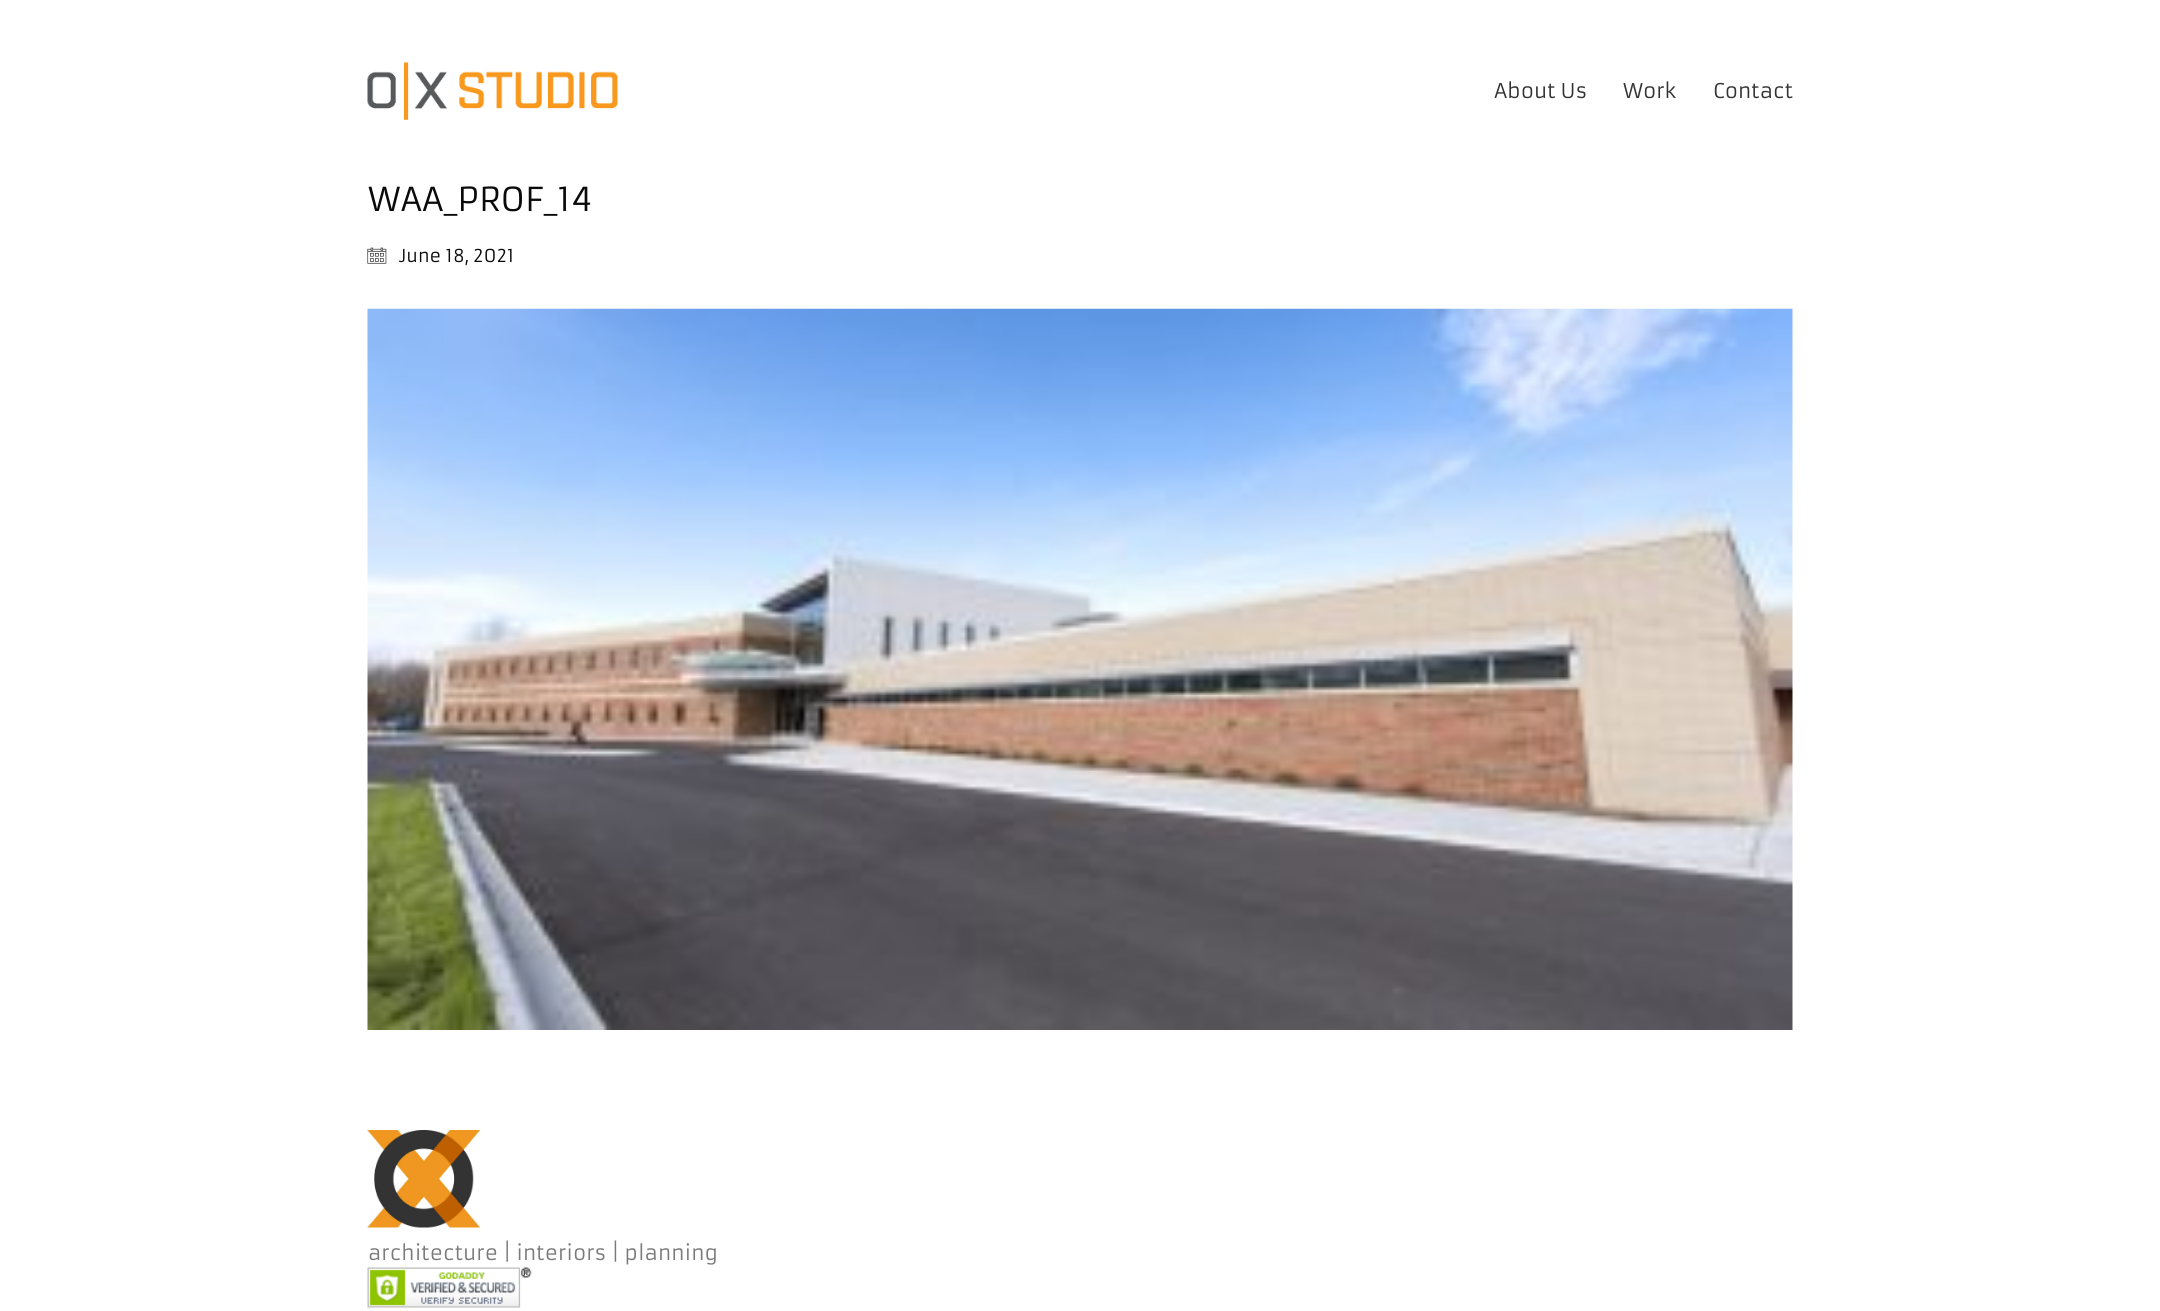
import math
import cairocffi as cairo

surface = cairo.ImageSurface(cairo.FORMAT_RGB24, 2160, 1311)
ctx = cairo.Context(surface)
options = cairo.FontOptions()
options.set_hint_metrics(cairo.HINT_METRICS_OFF)
options.set_hint_style(cairo.HINT_STYLE_NONE)
ctx.set_font_options(options)
ctx.set_miter_limit(4)


def rgb(r, g, b):
    ctx.set_source_rgb(r / 255, g / 255, b / 255)


def face(family, size, italic, bold):
    ctx.select_font_face(family, cairo.FONT_SLANT_ITALIC if italic else cairo.FONT_SLANT_NORMAL, cairo.FONT_WEIGHT_BOLD if bold else cairo.FONT_WEIGHT_NORMAL)
    ctx.set_font_size(size)


def label(x, y, s):
    ctx.move_to(x, y)
    ctx.show_text(s)


def image(path, x, y, w, h):
    ctx.save()
    ctx.set_source_surface(cairo.ImageSurface.create_from_png(path), x, y)
    ctx.rectangle(x, y, w, h)
    ctx.fill()
    ctx.restore()


rgb(255, 255, 255)
ctx.paint()
image('image0.png', 367, 62, 251, 58)
face('Armata', 20, 0, 0)
rgb(51, 51, 51)
label(1494, 98, 'About Us')
label(1623, 98, 'Work')
label(1713, 98, 'Contact')
face('Armata', 32.5, 0, 0)
rgb(10, 10, 10)
label(368, 211, 'WAA_PROF_14')
image('image1.png', 367, 247, 20, 17)
face('Armata', 17.5, 0, 0)
label(399, 262, 'June 18, 2021')
image('image2.png', 367, 308, 1426, 722)
image('image3.png', 367, 1130, 113, 98)
face('Armata', 20, 0, 0)
rgb(122, 122, 122)
label(368, 1260, 'architecture | interiors | planning')
image('image4.png', 367, 1267, 165, 41)
surface.write_to_png('render.png')
